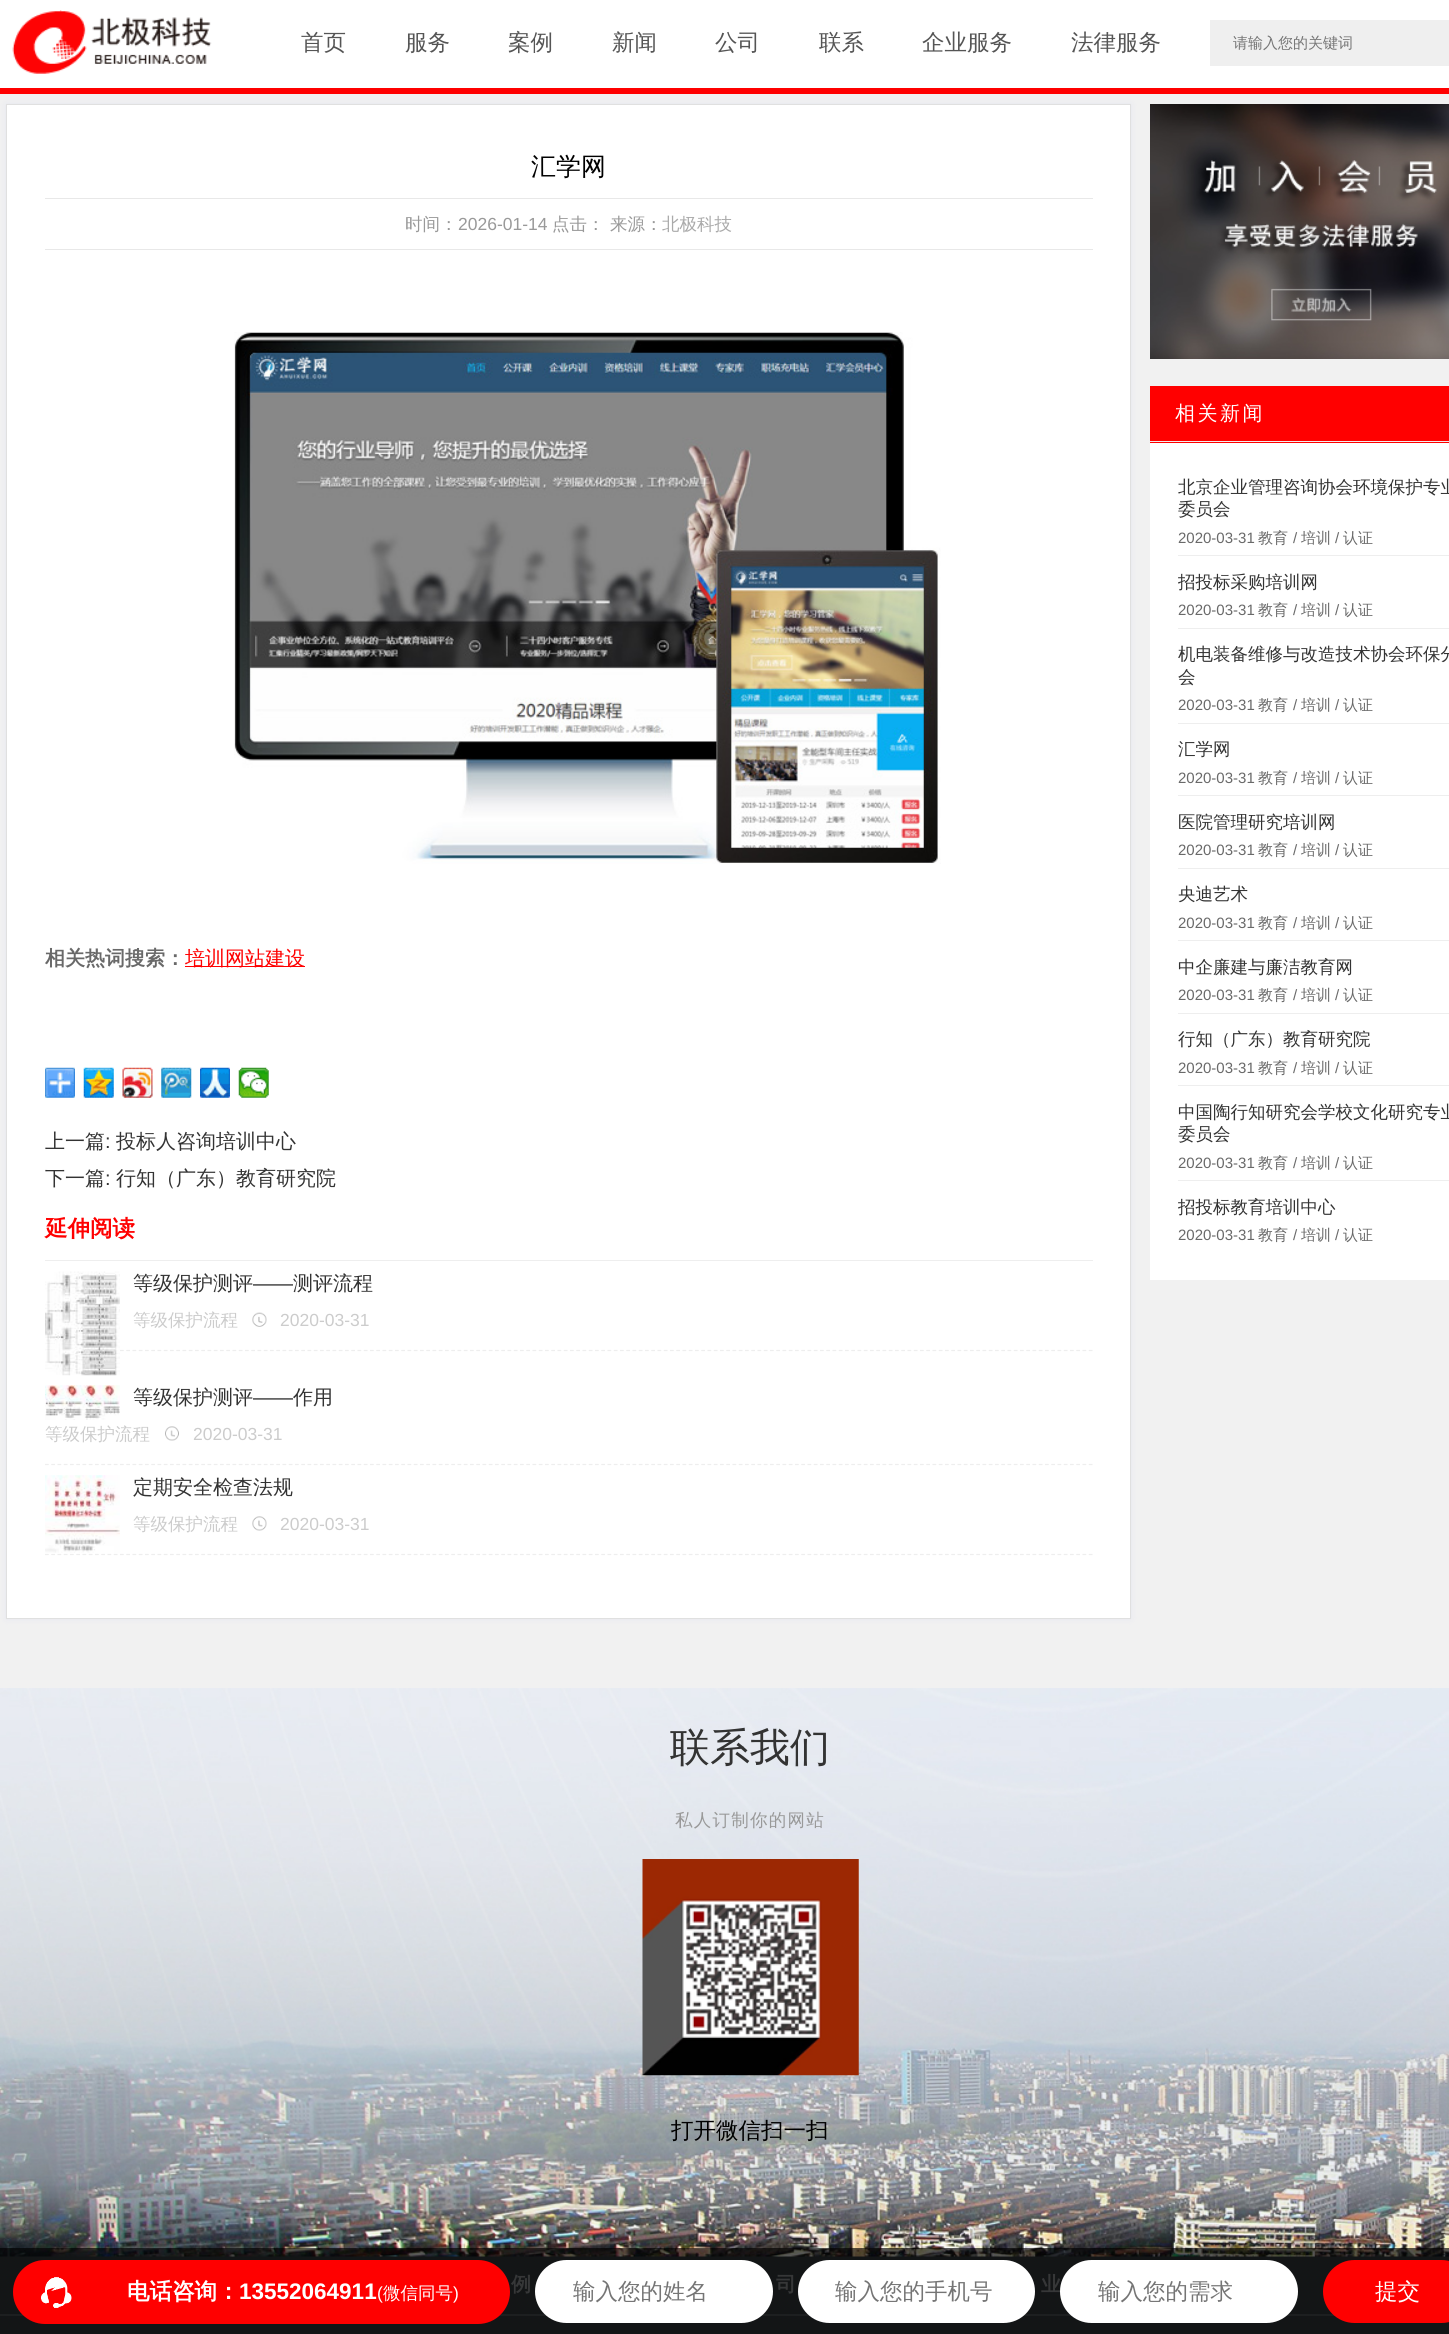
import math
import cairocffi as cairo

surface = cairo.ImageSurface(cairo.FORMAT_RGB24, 1449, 2334)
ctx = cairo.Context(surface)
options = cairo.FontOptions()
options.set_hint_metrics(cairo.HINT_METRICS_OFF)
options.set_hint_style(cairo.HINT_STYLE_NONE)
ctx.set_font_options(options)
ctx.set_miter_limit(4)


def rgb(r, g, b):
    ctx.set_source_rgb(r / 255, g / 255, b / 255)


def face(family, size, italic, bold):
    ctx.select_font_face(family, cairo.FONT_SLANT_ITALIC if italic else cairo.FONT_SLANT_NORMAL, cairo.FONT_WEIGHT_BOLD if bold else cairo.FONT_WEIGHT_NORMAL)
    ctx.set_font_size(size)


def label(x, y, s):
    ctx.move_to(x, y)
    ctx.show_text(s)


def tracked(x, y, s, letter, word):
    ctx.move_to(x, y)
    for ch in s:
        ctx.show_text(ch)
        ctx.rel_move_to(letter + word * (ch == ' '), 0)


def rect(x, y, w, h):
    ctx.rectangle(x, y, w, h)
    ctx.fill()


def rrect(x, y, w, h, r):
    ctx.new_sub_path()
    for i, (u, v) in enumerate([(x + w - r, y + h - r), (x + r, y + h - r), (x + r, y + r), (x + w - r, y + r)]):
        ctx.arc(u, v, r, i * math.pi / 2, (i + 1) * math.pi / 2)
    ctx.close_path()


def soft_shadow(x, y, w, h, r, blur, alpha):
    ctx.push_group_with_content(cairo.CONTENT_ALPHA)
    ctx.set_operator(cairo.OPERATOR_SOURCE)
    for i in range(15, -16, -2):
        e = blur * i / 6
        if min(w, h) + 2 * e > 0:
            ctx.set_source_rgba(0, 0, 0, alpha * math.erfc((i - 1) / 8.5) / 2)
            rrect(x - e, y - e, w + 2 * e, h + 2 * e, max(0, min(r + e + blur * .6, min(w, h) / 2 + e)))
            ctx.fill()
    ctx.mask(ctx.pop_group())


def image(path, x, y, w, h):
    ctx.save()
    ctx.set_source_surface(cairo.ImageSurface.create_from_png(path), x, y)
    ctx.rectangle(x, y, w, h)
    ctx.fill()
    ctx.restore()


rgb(54, 60, 64)
ctx.paint()
rgb(255, 255, 255)
rect(0, 0, 1449, 88)
rgb(255, 0, 0)
rect(0, 88, 1449, 6)
image('image0.png', 12, 10, 200, 64)
face('WenQuanYi Zen Hei Medium', 22.5, 0, 0)
rgb(85, 85, 85)
label(301, 50, '首页')
label(405, 50, '服务')
label(508, 50, '案例')
label(612, 50, '新闻')
label(715, 50, '公司')
label(819, 50, '联系')
label(922, 50, '企业服务')
label(1071, 50, '法律服务')
rgb(239, 239, 239)
rect(1210, 20, 239, 46)
face('WenQuanYi Zen Hei Medium', 15, 0, 0)
rgb(117, 117, 117)
label(1233, 48, '请输入您的关键词')
rgb(241, 241, 241)
rect(0, 94, 1449, 1594)
rgb(179, 185, 234)
soft_shadow(6, 104, 1125, 1515, 0, 3, 0.2)
rgb(255, 255, 255)
ctx.rectangle(6.5, 104.5, 1124, 1514)
ctx.fill_preserve()
rgb(224, 224, 224)
ctx.set_line_width(1)
ctx.stroke()
rgb(232, 232, 232)
rect(45, 198, 1048, 1)
face('WenQuanYi Zen Hei Medium', 25, 0, 0)
rgb(0, 0, 0)
label(531, 175, '汇学网')
rgb(232, 232, 232)
rect(45, 249, 1048, 1)
face('WenQuanYi Zen Hei Medium', 17.5, 0, 0)
rgb(153, 153, 153)
label(405, 230, '时间：')
face('Liberation Sans', 17.5, 0, 0)
label(458, 230, '2026-01-14')
face('WenQuanYi Zen Hei Medium', 17.5, 0, 0)
label(552, 230, '点击：')
label(610, 230, '来源：')
rgb(170, 170, 170)
label(662, 230, '北极科技')
image('image1.png', 234, 332, 707, 532)
face('WenQuanYi Zen Hei', 20, 0, 1)
rgb(105, 105, 105)
label(45, 965, '相关热词搜索：')
rgb(255, 0, 0)
rect(185, 966, 120, 1)
face('WenQuanYi Zen Hei Medium', 20, 0, 0)
label(185, 965, '培训网站建设')
image('image2.png', 45, 1067, 30, 31)
image('image3.png', 83, 1067, 31, 31)
image('image4.png', 122, 1067, 31, 31)
image('image5.png', 161, 1067, 31, 31)
image('image6.png', 200, 1067, 30, 31)
image('image7.png', 238, 1067, 31, 31)
rgb(51, 51, 51)
label(45, 1148, '上一篇')
face('Liberation Sans', 20, 0, 0)
label(105, 1148, ':')
face('WenQuanYi Zen Hei Medium', 20, 0, 0)
label(116, 1148, '投标人咨询培训中心')
label(45, 1185, '下一篇')
face('Liberation Sans', 20, 0, 0)
label(105, 1185, ':')
face('WenQuanYi Zen Hei Medium', 20, 0, 0)
label(116, 1185, '行知（广东）教育研究院')
rgb(238, 238, 238)
rect(45, 1260, 1048, 1)
face('WenQuanYi Zen Hei', 22.5, 0, 1)
rgb(255, 0, 0)
label(45, 1236, '延伸阅读')
ctx.new_path()
ctx.move_to(45, 1350.5)
ctx.line_to(1092.5, 1350.5)
rgb(238, 238, 238)
ctx.set_line_width(1.2)
ctx.set_dash([3.75, 2.5])
ctx.stroke()
image('image8.png', 45, 1271, 75, 105)
face('WenQuanYi Zen Hei Medium', 20, 0, 0)
rgb(51, 51, 51)
label(133, 1290, '等级保护测评')
face('Liberation Sans', 20, 0, 0)
label(253, 1290, '——')
face('WenQuanYi Zen Hei Medium', 20, 0, 0)
label(293, 1290, '测评流程')
face('WenQuanYi Zen Hei Medium', 17.5, 0, 0)
rgb(204, 204, 204)
label(133, 1326, '等级保护流程')
image('image9.png', 252, 1312, 15, 15)
face('Liberation Sans', 17.5, 0, 0)
label(280, 1326, '2020-03-31')
ctx.new_path()
ctx.move_to(45, 1464.5)
ctx.line_to(1092.5, 1464.5)
rgb(238, 238, 238)
ctx.stroke()
image('image10.png', 45, 1385, 75, 35)
face('WenQuanYi Zen Hei Medium', 20, 0, 0)
rgb(51, 51, 51)
label(133, 1404, '等级保护测评')
face('Liberation Sans', 20, 0, 0)
label(253, 1404, '——')
face('WenQuanYi Zen Hei Medium', 20, 0, 0)
label(293, 1404, '作用')
face('WenQuanYi Zen Hei Medium', 17.5, 0, 0)
rgb(204, 204, 204)
label(45, 1440, '等级保护流程')
image('image11.png', 165, 1426, 14, 15)
face('Liberation Sans', 17.5, 0, 0)
label(193, 1440, '2020-03-31')
ctx.new_path()
ctx.move_to(45, 1554.5)
ctx.line_to(1092.5, 1554.5)
rgb(238, 238, 238)
ctx.stroke()
image('image12.png', 45, 1475, 75, 78)
face('WenQuanYi Zen Hei Medium', 20, 0, 0)
rgb(51, 51, 51)
label(133, 1494, '定期安全检查法规')
face('WenQuanYi Zen Hei Medium', 17.5, 0, 0)
rgb(204, 204, 204)
label(133, 1530, '等级保护流程')
image('image13.png', 252, 1516, 15, 15)
face('Liberation Sans', 17.5, 0, 0)
label(280, 1530, '2020-03-31')
image('image14.png', 1150, 104, 299, 255)
rgb(255, 255, 255)
rect(1150, 443, 299, 837)
rgb(255, 0, 0)
rect(1150, 386, 299, 57)
rgb(238, 238, 238)
rect(1150, 441, 299, 1)
face('WenQuanYi Zen Hei Medium', 20, 0, 0)
rgb(255, 255, 255)
tracked(1175, 420, '相关新闻', 2.5, 0)
rgb(238, 238, 238)
rect(1178, 555, 271, 1)
face('WenQuanYi Zen Hei Medium', 17.5, 0, 0)
rgb(51, 51, 51)
label(1178, 493, '北京企业管理咨询协会环境保护专业')
label(1178, 515, '委员会')
face('Liberation Sans', 15, 0, 0)
rgb(105, 105, 105)
label(1178, 543, '2020-03-31')
face('WenQuanYi Zen Hei Medium', 15, 0, 0)
label(1258, 543, '教育')
face('Liberation Sans', 15, 0, 0)
label(1293, 543, '/')
face('WenQuanYi Zen Hei Medium', 15, 0, 0)
label(1301, 543, '培训')
face('Liberation Sans', 15, 0, 0)
label(1335, 543, '/')
face('WenQuanYi Zen Hei Medium', 15, 0, 0)
label(1343, 543, '认证')
rgb(238, 238, 238)
rect(1178, 628, 271, 1)
ctx.save()
ctx.rectangle(1178, 571, 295, 23)
ctx.clip()
face('WenQuanYi Zen Hei Medium', 17.5, 0, 0)
rgb(51, 51, 51)
label(1178, 588, '招投标采购培训网')
ctx.restore()
face('Liberation Sans', 15, 0, 0)
rgb(105, 105, 105)
label(1178, 615, '2020-03-31')
face('WenQuanYi Zen Hei Medium', 15, 0, 0)
label(1258, 615, '教育')
face('Liberation Sans', 15, 0, 0)
label(1293, 615, '/')
face('WenQuanYi Zen Hei Medium', 15, 0, 0)
label(1301, 615, '培训')
face('Liberation Sans', 15, 0, 0)
label(1335, 615, '/')
face('WenQuanYi Zen Hei Medium', 15, 0, 0)
label(1343, 615, '认证')
rgb(238, 238, 238)
rect(1178, 723, 271, 1)
face('WenQuanYi Zen Hei Medium', 17.5, 0, 0)
rgb(51, 51, 51)
label(1178, 660, '机电装备维修与改造技术协会环保分')
label(1178, 683, '会')
face('Liberation Sans', 15, 0, 0)
rgb(105, 105, 105)
label(1178, 710, '2020-03-31')
face('WenQuanYi Zen Hei Medium', 15, 0, 0)
label(1258, 710, '教育')
face('Liberation Sans', 15, 0, 0)
label(1293, 710, '/')
face('WenQuanYi Zen Hei Medium', 15, 0, 0)
label(1301, 710, '培训')
face('Liberation Sans', 15, 0, 0)
label(1335, 710, '/')
face('WenQuanYi Zen Hei Medium', 15, 0, 0)
label(1343, 710, '认证')
rgb(238, 238, 238)
rect(1178, 795, 271, 1)
face('WenQuanYi Zen Hei Medium', 17.5, 0, 0)
rgb(51, 51, 51)
label(1178, 755, '汇学网')
face('Liberation Sans', 15, 0, 0)
rgb(105, 105, 105)
label(1178, 783, '2020-03-31')
face('WenQuanYi Zen Hei Medium', 15, 0, 0)
label(1258, 783, '教育')
face('Liberation Sans', 15, 0, 0)
label(1293, 783, '/')
face('WenQuanYi Zen Hei Medium', 15, 0, 0)
label(1301, 783, '培训')
face('Liberation Sans', 15, 0, 0)
label(1335, 783, '/')
face('WenQuanYi Zen Hei Medium', 15, 0, 0)
label(1343, 783, '认证')
rgb(238, 238, 238)
rect(1178, 868, 271, 1)
face('WenQuanYi Zen Hei Medium', 17.5, 0, 0)
rgb(51, 51, 51)
label(1178, 828, '医院管理研究培训网')
face('Liberation Sans', 15, 0, 0)
rgb(105, 105, 105)
label(1178, 855, '2020-03-31')
face('WenQuanYi Zen Hei Medium', 15, 0, 0)
label(1258, 855, '教育')
face('Liberation Sans', 15, 0, 0)
label(1293, 855, '/')
face('WenQuanYi Zen Hei Medium', 15, 0, 0)
label(1301, 855, '培训')
face('Liberation Sans', 15, 0, 0)
label(1335, 855, '/')
face('WenQuanYi Zen Hei Medium', 15, 0, 0)
label(1343, 855, '认证')
rgb(238, 238, 238)
rect(1178, 940, 271, 1)
face('WenQuanYi Zen Hei Medium', 17.5, 0, 0)
rgb(51, 51, 51)
label(1178, 900, '央迪艺术')
face('Liberation Sans', 15, 0, 0)
rgb(105, 105, 105)
label(1178, 928, '2020-03-31')
face('WenQuanYi Zen Hei Medium', 15, 0, 0)
label(1258, 928, '教育')
face('Liberation Sans', 15, 0, 0)
label(1293, 928, '/')
face('WenQuanYi Zen Hei Medium', 15, 0, 0)
label(1301, 928, '培训')
face('Liberation Sans', 15, 0, 0)
label(1335, 928, '/')
face('WenQuanYi Zen Hei Medium', 15, 0, 0)
label(1343, 928, '认证')
rgb(238, 238, 238)
rect(1178, 1013, 271, 1)
face('WenQuanYi Zen Hei Medium', 17.5, 0, 0)
rgb(51, 51, 51)
label(1178, 973, '中企廉建与廉洁教育网')
face('Liberation Sans', 15, 0, 0)
rgb(105, 105, 105)
label(1178, 1000, '2020-03-31')
face('WenQuanYi Zen Hei Medium', 15, 0, 0)
label(1258, 1000, '教育')
face('Liberation Sans', 15, 0, 0)
label(1293, 1000, '/')
face('WenQuanYi Zen Hei Medium', 15, 0, 0)
label(1301, 1000, '培训')
face('Liberation Sans', 15, 0, 0)
label(1335, 1000, '/')
face('WenQuanYi Zen Hei Medium', 15, 0, 0)
label(1343, 1000, '认证')
rgb(238, 238, 238)
rect(1178, 1085, 271, 1)
face('WenQuanYi Zen Hei Medium', 17.5, 0, 0)
rgb(51, 51, 51)
label(1178, 1045, '行知（广东）教育研究院')
face('Liberation Sans', 15, 0, 0)
rgb(105, 105, 105)
label(1178, 1073, '2020-03-31')
face('WenQuanYi Zen Hei Medium', 15, 0, 0)
label(1258, 1073, '教育')
face('Liberation Sans', 15, 0, 0)
label(1293, 1073, '/')
face('WenQuanYi Zen Hei Medium', 15, 0, 0)
label(1301, 1073, '培训')
face('Liberation Sans', 15, 0, 0)
label(1335, 1073, '/')
face('WenQuanYi Zen Hei Medium', 15, 0, 0)
label(1343, 1073, '认证')
rgb(238, 238, 238)
rect(1178, 1180, 271, 1)
face('WenQuanYi Zen Hei Medium', 17.5, 0, 0)
rgb(51, 51, 51)
label(1178, 1118, '中国陶行知研究会学校文化研究专业')
label(1178, 1140, '委员会')
face('Liberation Sans', 15, 0, 0)
rgb(105, 105, 105)
label(1178, 1168, '2020-03-31')
face('WenQuanYi Zen Hei Medium', 15, 0, 0)
label(1258, 1168, '教育')
face('Liberation Sans', 15, 0, 0)
label(1293, 1168, '/')
face('WenQuanYi Zen Hei Medium', 15, 0, 0)
label(1301, 1168, '培训')
face('Liberation Sans', 15, 0, 0)
label(1335, 1168, '/')
face('WenQuanYi Zen Hei Medium', 15, 0, 0)
label(1343, 1168, '认证')
ctx.save()
ctx.rectangle(1178, 1196, 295, 23)
ctx.clip()
face('WenQuanYi Zen Hei Medium', 17.5, 0, 0)
rgb(51, 51, 51)
label(1178, 1213, '招投标教育培训中心')
ctx.restore()
face('Liberation Sans', 15, 0, 0)
label(1178, 1240, '2020-03-31')
face('WenQuanYi Zen Hei Medium', 15, 0, 0)
label(1258, 1240, '教育')
face('Liberation Sans', 15, 0, 0)
label(1293, 1240, '/')
face('WenQuanYi Zen Hei Medium', 15, 0, 0)
label(1301, 1240, '培训')
face('Liberation Sans', 15, 0, 0)
label(1335, 1240, '/')
face('WenQuanYi Zen Hei Medium', 15, 0, 0)
label(1343, 1240, '认证')
image('image15.png', 0, 1688, 1449, 569)
face('WenQuanYi Zen Hei Medium', 40, 0, 0)
rgb(51, 51, 51)
label(670, 1761, '联系我们')
face('WenQuanYi Zen Hei Medium', 17.5, 0, 0)
rgb(153, 153, 153)
tracked(675, 1826, '私人订制你的网站', 1.25, 0)
image('image16.png', 642, 1859, 217, 217)
face('WenQuanYi Zen Hei Medium', 22.5, 0, 0)
rgb(0, 0, 0)
label(671, 2138, '打开微信扫一扫')
rgb(84, 89, 92)
rect(0, 2314, 1334, 1)
face('WenQuanYi Zen Hei', 20, 0, 1)
rgb(155, 158, 160)
label(511, 2291, '例')
label(776, 2291, '司')
label(1041, 2291, '业')
rgb(84, 89, 92)
rect(0, 2315, 1335, 1)
ctx.set_source_rgba(0, 0, 0, 0.65)
rect(0, 2248, 1449, 86)
rgb(255, 0, 0)
rrect(13, 2260, 497, 64, 32)
ctx.fill()
image('image17.png', 41, 2277, 31, 31)
face('WenQuanYi Zen Hei', 22.5, 0, 1)
rgb(255, 255, 255)
label(127, 2299, '电话咨询：')
face('Liberation Sans', 22.5, 0, 1)
label(239, 2299, '13552064911')
face('Liberation Sans', 17.5, 0, 0)
label(377, 2299, '(')
face('WenQuanYi Zen Hei Medium', 17.5, 0, 0)
label(383, 2299, '微信同号')
face('Liberation Sans', 17.5, 0, 0)
label(453, 2299, ')')
rrect(535, 2260, 238, 63, 31.5)
ctx.fill()
ctx.save()
ctx.rectangle(573, 2276, 162, 30)
ctx.clip()
face('WenQuanYi Zen Hei Medium', 22.5, 0, 0)
rgb(117, 117, 117)
label(573, 2299, '输入您的姓名')
ctx.restore()
rrect(798, 2260, 237, 63, 31.5)
ctx.fill()
face('WenQuanYi Zen Hei Medium', 22.5, 0, 0)
rgb(117, 117, 117)
label(835, 2299, '输入您的手机号')
rgb(255, 255, 255)
rrect(1060, 2260, 238, 63, 31.5)
ctx.fill()
ctx.save()
ctx.rectangle(1098, 2276, 162, 30)
ctx.clip()
rgb(117, 117, 117)
label(1098, 2299, '输入您的需求')
ctx.restore()
rgb(255, 0, 0)
rrect(1323, 2260, 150, 63, 31.5)
ctx.fill()
rgb(255, 255, 255)
label(1375, 2299, '提交')
surface.write_to_png('render.png')
